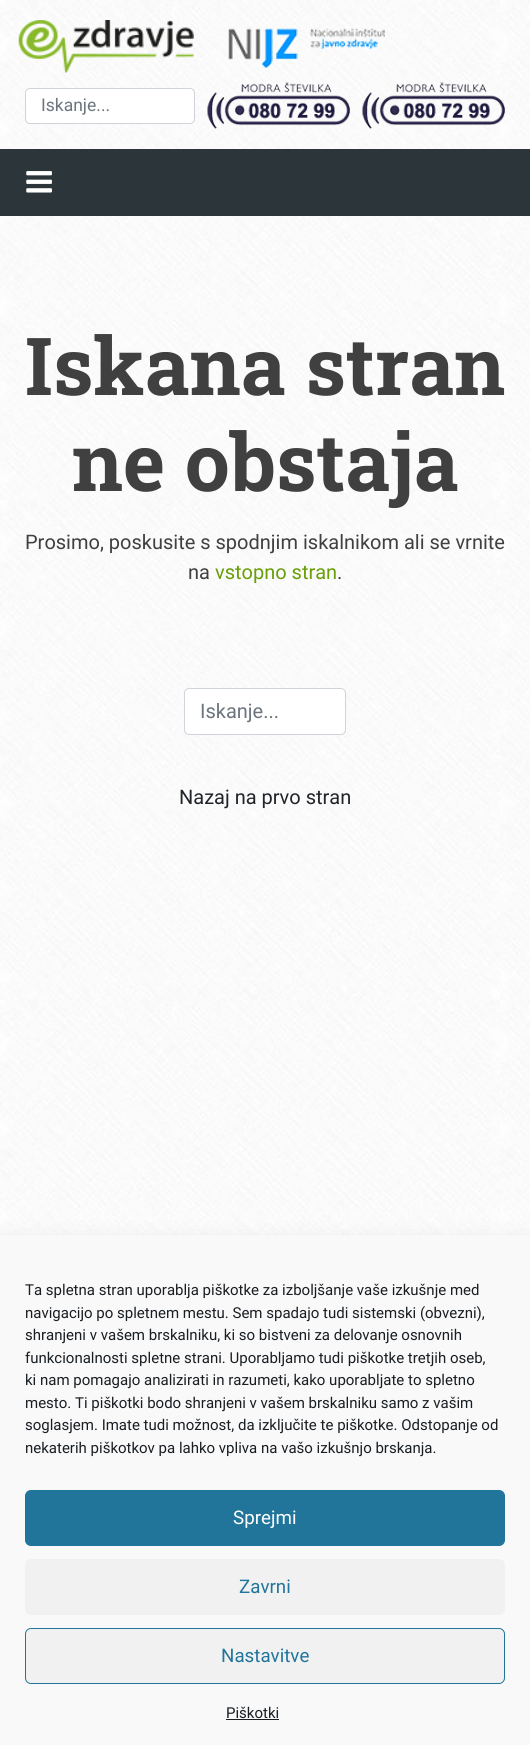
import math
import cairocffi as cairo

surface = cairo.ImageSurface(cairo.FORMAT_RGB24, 530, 1745)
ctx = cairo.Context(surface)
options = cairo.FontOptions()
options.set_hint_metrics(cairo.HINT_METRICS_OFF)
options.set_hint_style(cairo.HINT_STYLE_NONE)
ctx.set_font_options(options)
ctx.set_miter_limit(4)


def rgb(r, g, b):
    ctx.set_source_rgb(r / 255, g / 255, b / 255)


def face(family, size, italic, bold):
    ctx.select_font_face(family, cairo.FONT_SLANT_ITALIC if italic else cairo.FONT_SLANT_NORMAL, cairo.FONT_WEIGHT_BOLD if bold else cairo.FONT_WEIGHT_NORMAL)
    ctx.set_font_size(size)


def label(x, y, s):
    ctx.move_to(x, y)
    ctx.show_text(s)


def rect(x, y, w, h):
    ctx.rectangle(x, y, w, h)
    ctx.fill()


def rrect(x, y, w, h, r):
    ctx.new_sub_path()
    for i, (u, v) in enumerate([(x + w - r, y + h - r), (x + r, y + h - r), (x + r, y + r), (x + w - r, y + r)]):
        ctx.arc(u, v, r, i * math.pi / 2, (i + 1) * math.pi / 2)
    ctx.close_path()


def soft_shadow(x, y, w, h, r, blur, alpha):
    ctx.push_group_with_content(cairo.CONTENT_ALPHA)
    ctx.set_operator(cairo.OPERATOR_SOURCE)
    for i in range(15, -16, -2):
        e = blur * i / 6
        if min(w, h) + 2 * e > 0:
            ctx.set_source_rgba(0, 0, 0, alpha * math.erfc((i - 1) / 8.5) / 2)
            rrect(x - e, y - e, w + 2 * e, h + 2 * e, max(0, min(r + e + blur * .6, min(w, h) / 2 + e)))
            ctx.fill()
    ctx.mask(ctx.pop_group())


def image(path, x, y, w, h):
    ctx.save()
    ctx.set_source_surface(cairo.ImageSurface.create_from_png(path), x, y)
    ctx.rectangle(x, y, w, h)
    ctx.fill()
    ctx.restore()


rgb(255, 255, 255)
ctx.paint()
image('image0.png', 0, 0, 530, 1235)
image('image1.png', 18, 20, 367, 53)
rgb(255, 255, 255)
rrect(25.5, 88.5, 169, 35, 4.5)
ctx.fill_preserve()
rgb(206, 212, 218)
ctx.set_line_width(1)
ctx.stroke()
face('Roboto', 17.5, 0, 0)
rgb(108, 117, 125)
label(41, 111, 'Iskanje...')
image('image2.png', 207, 82, 143, 47)
image('image3.png', 362, 82, 143, 47)
rgb(43, 53, 58)
rect(0, 149, 530, 67)
image('image4.png', 26, 171, 26, 22)
face('Roboto Slab', 80, 0, 1)
rgb(64, 64, 64)
label(25, 395, 'Iskana stran')
label(72, 491, 'ne obstaja')
face('Roboto', 20, 0, 0)
label(25, 549, 'Prosimo, poskusite s spodnjim iskalnikom ali se vrnite')
label(188, 579, 'na')
rgb(105, 157, 9)
label(215, 579, 'vstopno stran')
rgb(64, 64, 64)
label(337, 579, '.')
rgb(255, 255, 255)
rrect(184.5, 688.5, 161, 46, 4.5)
ctx.fill_preserve()
rgb(206, 212, 218)
ctx.stroke()
rgb(108, 117, 125)
label(200, 718, 'Iskanje...')
rgb(33, 37, 41)
label(179, 804, 'Nazaj na prvo stran')
rgb(0, 0, 0)
soft_shadow(0, 1248, 530, 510, 0, 12.5, 0.19)
rgb(249, 249, 249)
rect(0, 1236, 530, 509)
face('Roboto', 15, 0, 0)
rgb(25, 30, 35)
label(25, 1295, 'Ta spletna stran uporablja piškotke za izboljšanje vaše izkušnje med')
label(25, 1318, 'navigacijo po spletnem mestu. Sem spadajo tudi sistemski (obvezni),')
label(25, 1340, 'shranjeni v vašem brskalniku, ki so bistveni za delovanje osnovnih')
label(25, 1363, 'funkcionalnosti spletne strani. Uporabljamo tudi piškotke tretjih oseb,')
label(25, 1385, 'ki nam pomagajo analizirati in razumeti, kako uporabljate to spletno')
label(25, 1408, 'mesto. Ti piškotki bodo shranjeni v vašem brskalniku samo z vašim')
label(25, 1430, 'soglasjem. Imate tudi možnost, da izključite te piškotke. Odstopanje od')
label(25, 1453, 'nekaterih piškotkov pa lahko vpliva na vašo izkušnjo brskanja.')
rgb(33, 117, 155)
rrect(25.5, 1490.5, 479, 55, 5.5)
ctx.fill_preserve()
ctx.stroke()
face('Roboto', 18.75, 0, 0)
rgb(255, 255, 255)
label(233, 1524, 'Sprejmi')
rgb(241, 241, 241)
rrect(25, 1559, 480, 56, 6)
ctx.fill()
rgb(33, 117, 155)
label(239, 1593, 'Zavrni')
rgb(241, 241, 241)
rrect(25.5, 1628.5, 479, 55, 5.5)
ctx.fill_preserve()
rgb(33, 117, 155)
ctx.stroke()
label(221, 1662, 'Nastavitve')
face('Roboto', 15, 0, 0)
rgb(25, 30, 35)
label(226, 1718, 'Piškotki')
rect(226, 1719, 53, 1)
surface.write_to_png('render.png')
